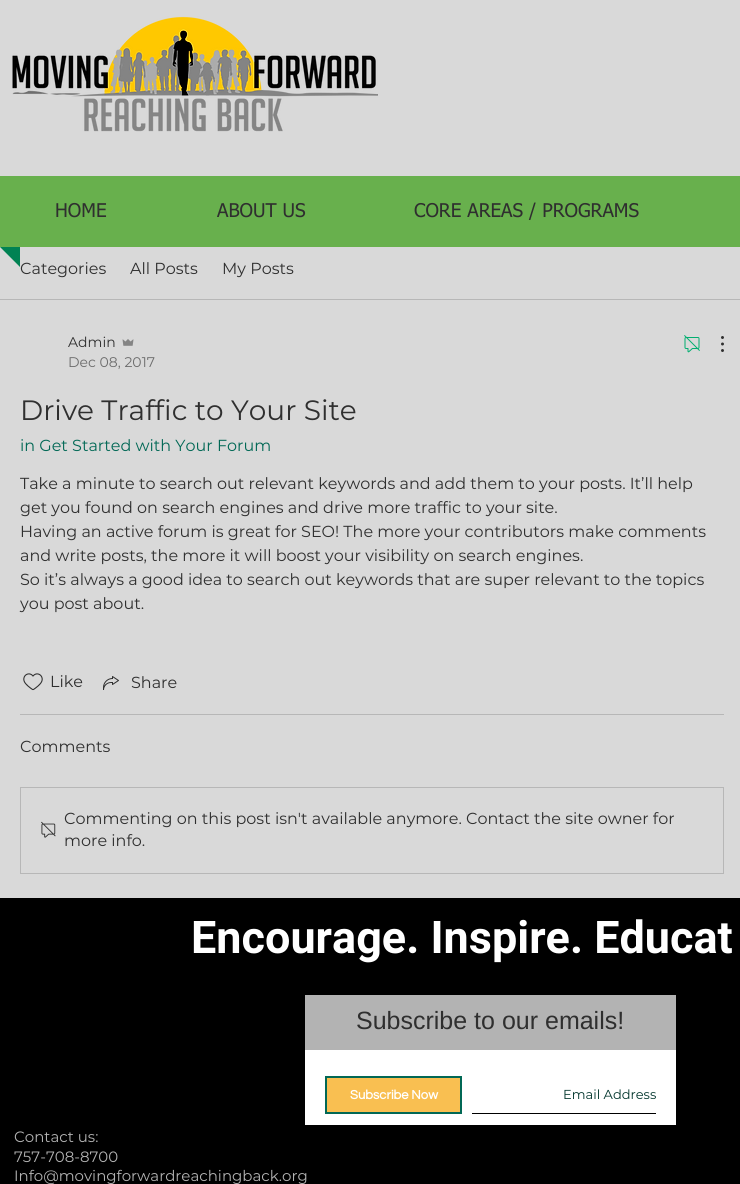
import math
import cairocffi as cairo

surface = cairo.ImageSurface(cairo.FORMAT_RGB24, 740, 1184)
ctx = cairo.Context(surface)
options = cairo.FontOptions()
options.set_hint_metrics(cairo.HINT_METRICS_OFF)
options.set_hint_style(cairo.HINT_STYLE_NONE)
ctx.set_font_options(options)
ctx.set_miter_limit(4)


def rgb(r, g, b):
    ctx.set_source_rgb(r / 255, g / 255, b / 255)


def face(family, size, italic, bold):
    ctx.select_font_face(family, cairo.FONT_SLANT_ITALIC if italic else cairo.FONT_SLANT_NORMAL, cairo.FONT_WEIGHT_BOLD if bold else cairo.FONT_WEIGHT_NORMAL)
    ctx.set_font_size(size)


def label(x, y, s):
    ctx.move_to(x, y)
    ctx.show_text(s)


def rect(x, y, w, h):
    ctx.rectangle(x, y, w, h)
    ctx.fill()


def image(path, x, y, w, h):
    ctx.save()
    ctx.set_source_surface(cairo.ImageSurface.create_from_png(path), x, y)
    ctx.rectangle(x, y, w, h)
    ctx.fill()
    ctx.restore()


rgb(217, 217, 217)
ctx.paint()
image('image0.png', 12, 16, 366, 116)
rgb(104, 176, 77)
rect(0, 176, 740, 71)
face('tahoma', 19, 0, 0)
rgb(47, 47, 47)
label(55, 217, 'HOME')
label(217, 217, 'ABOUT US')
label(414, 217, 'CORE AREAS / PROGRAMS')
rgb(1, 130, 83)
ctx.new_path()
ctx.move_to(0, 247)
ctx.line_to(20, 247)
ctx.line_to(20, 267)
ctx.close_path()
ctx.fill()
rgb(183, 183, 183)
rect(0, 299, 740, 1)
face('Montserrat', 16, 0, 0)
rgb(47, 47, 47)
label(20, 274, 'Categories')
label(130, 274, 'All Posts')
label(222, 274, 'My Posts')
face('Montserrat', 14, 0, 0)
label(68, 347, 'Admin')
image('image1.png', 122, 339, 12, 7)
rgb(108, 108, 108)
label(68, 367, 'Dec 08, 2017')
image('image2.png', 684, 335, 16, 18)
image('image3.png', 721, 336, 3, 16)
face('Montserrat', 28, 0, 0)
rgb(47, 47, 47)
label(20, 420, 'Drive Traffic to Your Site')
face('Montserrat', 16, 0, 0)
rgb(1, 104, 85)
label(20, 451, 'in Get Started with Your Forum')
rgb(47, 47, 47)
label(20, 489, 'Take a minute to search out relevant keywords and add them to your posts. It’ll help')
label(20, 513, 'get you found on search engines and drive more traffic to your site.')
label(20, 537, 'Having an active forum is great for SEO! The more your contributors make comments')
label(20, 561, 'and write posts, the more it will boost your visibility on search engines.')
label(20, 585, 'So it’s always a good idea to search out keywords that are super relevant to the topics')
label(20, 609, 'you post about.')
image('image4.png', 23, 673, 20, 18)
label(50, 687, 'Like')
image('image5.png', 103, 676, 16, 14)
label(131, 688, 'Share')
rgb(183, 183, 183)
rect(20, 714, 704, 1)
rgb(47, 47, 47)
label(20, 752, 'Comments')
ctx.rectangle(20.5, 787.5, 703, 86)
rgb(183, 183, 183)
ctx.set_line_width(1)
ctx.stroke()
image('image6.png', 41, 821, 15, 17)
rgb(47, 47, 47)
label(64, 824, 'Commenting on this post isn\'t available anymore. Contact the site owner for')
label(64, 846, 'more info.')
rgb(0, 0, 0)
rect(0, 898, 740, 286)
face('Roboto', 45, 0, 1)
rgb(255, 255, 255)
label(191, 953, 'Encourage. Inspire. Educat')
rgb(179, 179, 179)
rect(305, 995, 371, 55)
face('Liberation Sans', 25, 0, 0)
rgb(47, 47, 47)
label(356, 1029, 'Subscribe to our emails!')
rgb(255, 255, 255)
rect(305, 1050, 371, 75)
rgb(249, 191, 81)
ctx.rectangle(326, 1077, 135, 36)
ctx.fill_preserve()
rgb(1, 104, 85)
ctx.set_line_width(2)
ctx.stroke()
face('Questrial', 13, 0, 1)
rgb(255, 255, 255)
label(350, 1099, 'Subscribe Now')
rgb(0, 0, 0)
rect(472, 1113, 184, 1)
face('Montserrat', 13, 0, 0)
rgb(0, 52, 43)
label(563, 1099, 'Email Address')
face('Montserrat', 15, 0, 0)
rgb(179, 179, 179)
label(14, 1142, 'Contact us:')
label(14, 1162, '757-708-8700')
label(14, 1181, 'Info@movingforwardreachingback.org')
surface.write_to_png('render.png')
